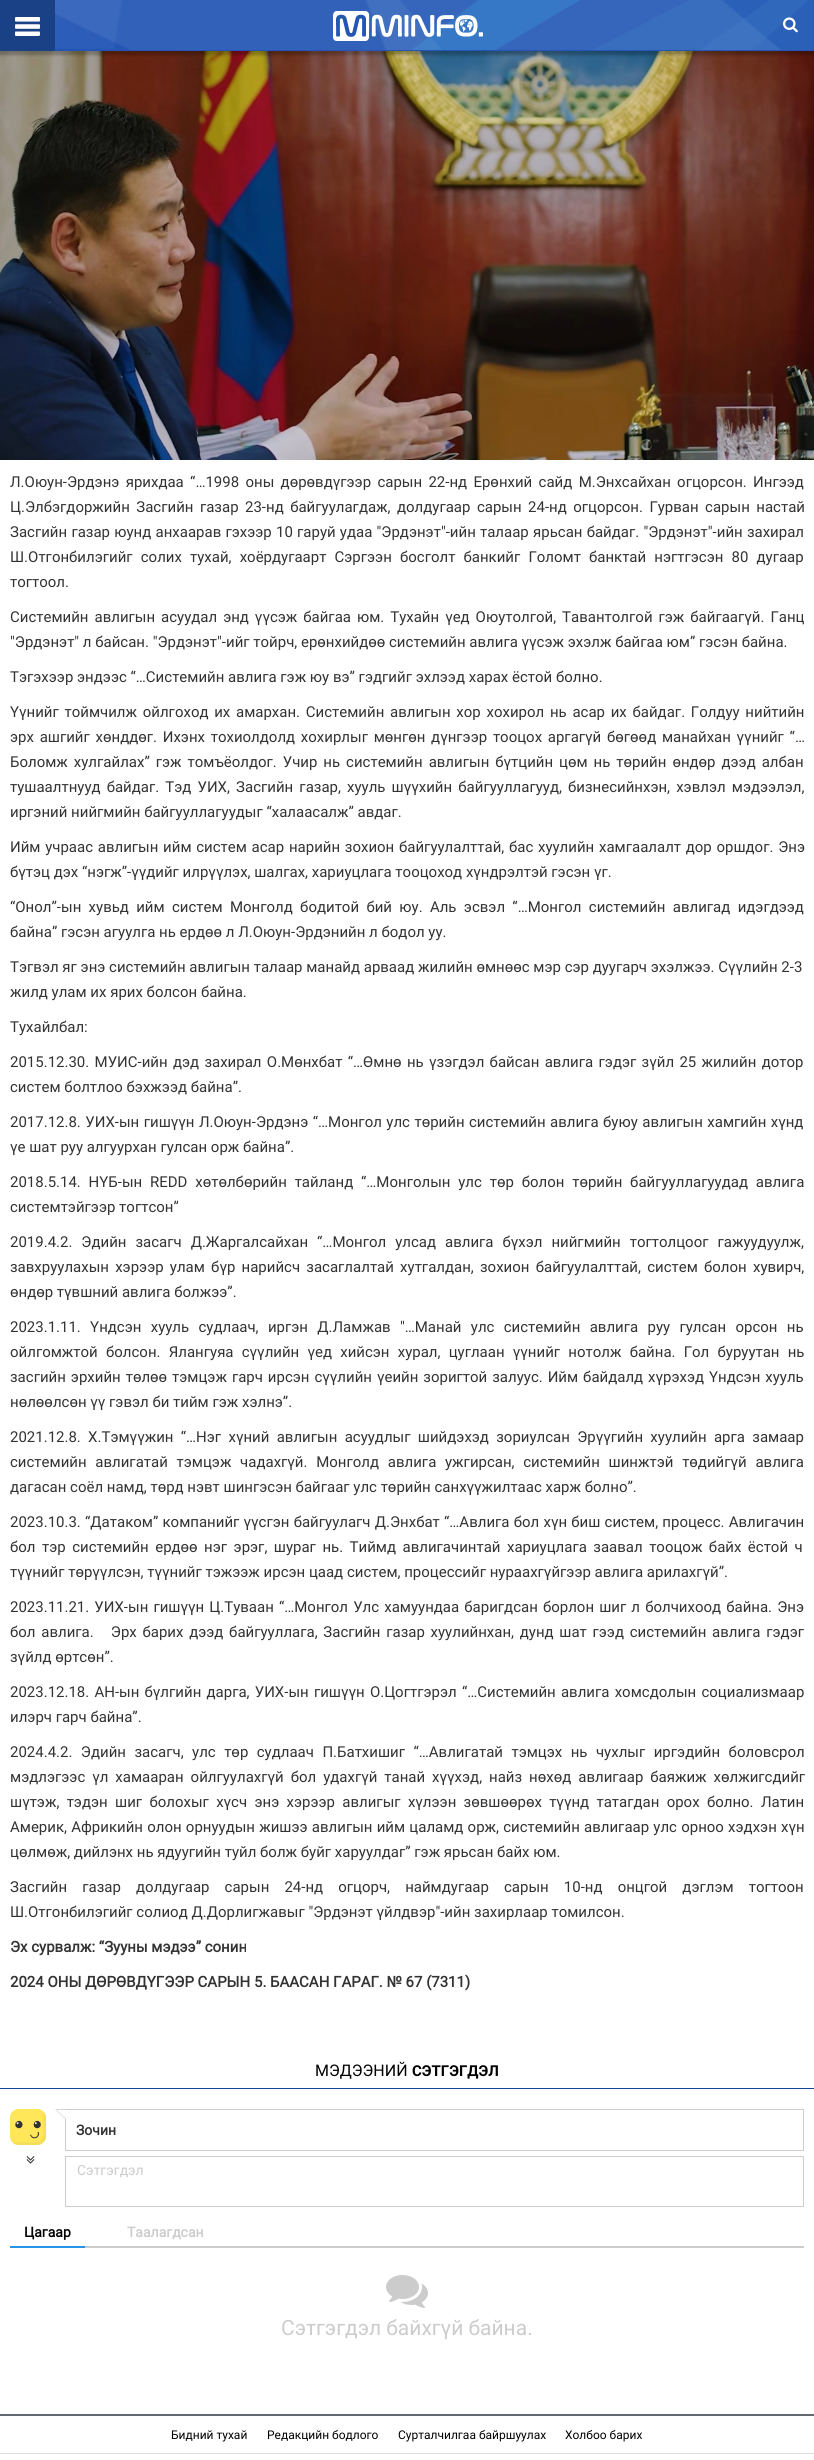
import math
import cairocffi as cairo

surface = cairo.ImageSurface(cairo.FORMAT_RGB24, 814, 2460)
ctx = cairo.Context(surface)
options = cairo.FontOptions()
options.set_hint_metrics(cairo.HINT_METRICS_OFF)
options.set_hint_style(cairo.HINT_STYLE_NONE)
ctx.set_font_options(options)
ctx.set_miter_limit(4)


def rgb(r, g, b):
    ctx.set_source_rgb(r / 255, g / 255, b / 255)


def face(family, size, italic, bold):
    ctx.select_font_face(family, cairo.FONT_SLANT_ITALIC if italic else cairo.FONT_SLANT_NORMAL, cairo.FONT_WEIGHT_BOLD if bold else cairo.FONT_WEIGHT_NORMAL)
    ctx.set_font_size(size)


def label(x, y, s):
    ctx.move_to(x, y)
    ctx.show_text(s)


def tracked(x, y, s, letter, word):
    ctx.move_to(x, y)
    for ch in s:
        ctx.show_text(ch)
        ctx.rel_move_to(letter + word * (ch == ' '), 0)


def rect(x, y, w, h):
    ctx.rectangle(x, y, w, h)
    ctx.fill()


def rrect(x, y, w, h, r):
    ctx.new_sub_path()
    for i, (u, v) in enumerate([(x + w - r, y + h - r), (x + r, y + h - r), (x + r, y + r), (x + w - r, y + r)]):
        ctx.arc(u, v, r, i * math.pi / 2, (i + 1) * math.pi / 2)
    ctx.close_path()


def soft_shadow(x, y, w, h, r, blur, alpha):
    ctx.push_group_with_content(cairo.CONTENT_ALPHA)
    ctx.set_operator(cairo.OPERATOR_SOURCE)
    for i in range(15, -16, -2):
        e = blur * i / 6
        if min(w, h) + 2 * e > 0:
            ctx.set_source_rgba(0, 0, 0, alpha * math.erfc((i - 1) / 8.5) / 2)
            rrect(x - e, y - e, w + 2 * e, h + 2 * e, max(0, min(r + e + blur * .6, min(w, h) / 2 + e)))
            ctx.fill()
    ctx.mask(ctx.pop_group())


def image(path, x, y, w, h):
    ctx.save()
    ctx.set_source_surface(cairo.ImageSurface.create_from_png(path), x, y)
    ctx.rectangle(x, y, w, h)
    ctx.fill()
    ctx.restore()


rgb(255, 255, 255)
ctx.paint()
image('image4.png', 0, 51, 814, 409)
rgb(0, 0, 0)
soft_shadow(-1, 2, 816, 53, 0, 1.5, 0.25)
rgb(35, 85, 180)
rect(55, 0, 759, 51)
image('image0.png', 55, 0, 759, 50)
rgb(26, 64, 134)
rect(0, 0, 55, 51)
image('image1.png', 15, 17, 25, 19)
image('image2.png', 333, 11, 150, 30)
image('image3.png', 783, 17, 15, 16)
face('Roboto', 15, 0, 0)
rgb(51, 51, 51)
tracked(10, 487, 'Л.Оюун-Эрдэнэ ярихдаа “…1998 оны дөрөвдүгээр сарын 22-нд Ерөнхий сайд М.Энхсайхан огцорсон. Ингээд', 0, 2.6)
tracked(10, 512, 'Ц.Элбэгдоржийн Засгийн газар 23-нд байгуулагдаж, долдугаар сарын 24-нд огцорсон. Гурван сарын настай', 0, 2.75)
tracked(10, 537, 'Засгийн газар юунд анхаарав гэхээр 10 гаруй удаа "Эрдэнэт"-ийн талаар ярьсан байдаг. "Эрдэнэт"-ийн захирал', 0, 0.5)
tracked(10, 562, 'Ш.Отгонбилэгийг солих тухай, хоёрдугаарт Сэргээн босголт банкийг Голомт банктай нэгтгэсэн 80 дугаар', 0, 4.4)
label(10, 587, 'тогтоол.')
tracked(10, 622, 'Системийн авлигын асуудал энд үүсэж байгаа юм. Тухайн үед Оюутолгой, Тавантолгой гэж байгаагүй. Ганц', 0, 2.25)
label(10, 647, '"Эрдэнэт" л байсан. "Эрдэнэт"-ийг тойрч, ерөнхийдөө системийн авлига үүсэж эхэлж байгаа юм” гэсэн байна.')
label(10, 682, 'Тэгэхээр эндээс “…Системийн авлига гэж юу вэ” гэдгийг эхлээд харах ёстой болно.')
tracked(10, 717, 'Үүнийг тоймчилж ойлгоход их амархан. Системийн авлигын хор хохирол нь асар их байдаг. Голдуу нийтийн', 0, 2)
tracked(10, 742, 'эрх ашгийг хөнддөг. Ихэнх тохиолдолд хохирлыг мөнгөн дүнгээр тооцох аргагүй бөгөөд манайхан үүнийг “…', 0, 2)
tracked(10, 767, 'Боломж хулгайлах” гэж томъёолдог. Учир нь системийн авлигын бүтцийн цөм нь төрийн өндөр дээд албан', 0, 2.25)
tracked(10, 792, 'тушаалтнууд байдаг. Тэд УИХ, Засгийн газар, хууль шүүхийн байгууллагууд, бизнесийнхэн, хэвлэл мэдээлэл,', 0, 2.4)
label(10, 817, 'иргэний нийгмийн байгууллагуудыг “халаасалж” авдаг.')
tracked(10, 852, 'Ийм учраас авлигын ийм систем асар нарийн зохион байгуулалттай, бас хуулийн хамгаалалт дор оршдог. Энэ', 0, 1)
label(10, 877, 'бүтэц дэх “нэгж”-үүдийг илрүүлэх, шалгах, хариуцлага тооцоход хүндрэлтэй гэсэн үг.')
tracked(10, 912, '“Онол”-ын хувьд ийм систем Монголд бодитой бий юу. Аль эсвэл “…Монгол системийн авлигад идэгдээд', 0, 3.6)
label(10, 937, 'байна” гэсэн агуулга нь ердөө л Л.Оюун-Эрдэнийн л бодол уу.')
label(10, 972, 'Тэгвэл яг энэ системийн авлигын талаар манайд арваад жилийн өмнөөс мэр сэр дуугарч эхэлжээ. Сүүлийн 2-3')
label(10, 997, 'жилд улам их ярих болсон байна.')
label(10, 1032, 'Тухайлбал:')
tracked(10, 1067, '2015.12.30. МУИС-ийн дэд захирал О.Мөнхбат “…Өмнө нь үзэгдэл байсан авлига гэдэг зүйл 25 жилийн дотор', 0, 1.6)
label(10, 1092, 'систем болтлоо бэхжээд байна”.')
tracked(10, 1127, '2017.12.8. УИХ-ын гишүүн Л.Оюун-Эрдэнэ “…Монгол улс төрийн системийн авлига буюу авлигын хамгийн хүнд', 0, 0.75)
label(10, 1152, 'үе шат руу алгуурхан гулсан орж байна”.')
tracked(10, 1187, '2018.5.14. НҮБ-ын REDD хөтөлбөрийн тайланд “…Монголын улс төр болон төрийн байгууллагуудад авлига', 0, 4.1)
label(10, 1212, 'системтэйгээр тогтсон”')
tracked(10, 1247, '2019.4.2. Эдийн засагч Д.Жаргалсайхан “…Монгол улсад авлига бүхэл нийгмийн тогтолцоог гажуудуулж,', 0, 5.25)
tracked(10, 1272, 'завхруулахын хэрээр улам бүр нарийсч засаглалтай хутгалдан, зохион байгуулалттай, систем болон хувирч,', 0, 2.5)
label(10, 1297, 'өндөр түвшний авлига болжээ”.')
tracked(10, 1332, '2023.1.11. Үндсэн хууль судлаач, иргэн Д.Ламжав "…Манай улс системийн авлига руу гулсан орсон нь', 0, 5.6)
tracked(10, 1357, 'ойлгомжтой болсон. Ялангуяа сүүлийн үед хийсэн хурал, цуглаан үүнийг нотолж байна. Гол буруутан нь', 0, 4.5)
tracked(10, 1382, 'засгийн эрхийн төлөө тэмцэж гарч ирсэн сүүлийн үеийн зоригтой залуус. Ийм байдалд хүрэхэд Үндсэн хууль', 0, 1.25)
label(10, 1407, 'нөлөөлсөн үү гэвэл би тийм гэж хэлнэ”.')
tracked(10, 1442, '2021.12.8. Х.Тэмүүжин “…Нэг хүний авлигын асуудлыг шийдэхэд зориулсан Эрүүгийн хуулийн арга замаар', 0, 3.6)
tracked(10, 1467, 'системийн авлигатай тэмцэж чадахгүй. Монголд авлига ужгирсан, системийн шинжтэй төдийгүй авлига', 0, 5)
label(10, 1492, 'дагасан соёл намд, төрд нэвт шингэсэн байгааг улс төрийн санхүүжилтаас харж болно”.')
tracked(10, 1527, '2023.10.3. “Датаком” компанийг үүсгэн байгуулагч Д.Энхбат “…Авлига бол хүн биш систем, процесс. Авлигачин', 0, 0.5)
tracked(10, 1552, 'бол тэр системийн ердөө нэг эрэг, шураг нь. Тиймд авлигачинтай хариуцлага заавал тооцож байх ёстой ч', 0, 2.75)
label(10, 1577, 'түүнийг төрүүлсэн, түүнийг тэжээж ирсэн цаад систем, процессийг нураахгүйгээр авлига арилахгүй”.')
tracked(10, 1612, '2023.11.21. УИХ-ын гишүүн Ц.Туваан “…Монгол Улс хамуундаа баригдсан борлон шиг л болчихоод байна. Энэ', 0, 1.4)
tracked(10, 1637, 'бол авлига.   Эрх барих дээд байгууллага, Засгийн газар хуулийнхан, дунд шат гээд системийн авлига гэдэг', 0, 2)
label(10, 1662, 'зүйлд өртсөн”.')
tracked(10, 1697, '2023.12.18. АН-ын бүлгийн дарга, УИХ-ын гишүүн О.Цогтгэрэл “…Системийн авлига хомсдолын социализмаар', 0, 1.5)
label(10, 1722, 'илэрч гарч байна”.')
tracked(10, 1757, '2024.4.2. Эдийн засагч, улс төр судлаач П.Батхишиг “…Авлигатай тэмцэх нь чухлыг иргэдийн боловсрол', 0, 4.75)
tracked(10, 1782, 'мэдлэгээс үл хамааран ойлгуулахгүй бол удахгүй танай хүүхэд, найз нөхөд авлигаар баяжиж хөлжигсдийг', 0, 3.25)
tracked(10, 1807, 'шүтэж, тэдэн шиг болохыг хүсч энэ хэрээр авлигыг хүлээн зөвшөөрөх түүнд татагдан орох болно. Латин', 0, 3.6)
tracked(10, 1832, 'Америк, Африкийн олон орнуудын жишээ авлигын ийм цаламд орж, системийн авлигаар улс орноо хэдхэн хүн', 0, 0.5)
label(10, 1857, 'цөлмөж, дийлэнх нь ядуугийн туйл болж буйг харуулдаг” гэж ярьсан байх юм.')
tracked(10, 1892, 'Засгийн газар долдугаар сарын 24-нд огцорч, наймдугаар сарын 10-нд онцгой дэглэм тогтоон', 0, 11.4)
label(10, 1917, 'Ш.Отгонбилэгийг солиод Д.Дорлигжавыг "Эрдэнэт үйлдвэр"-ийн захирлаар томилсон.')
face('Roboto', 15, 0, 1)
label(10, 1952, 'Эх сурвалж: “Зууны мэдээ” сонин')
label(10, 1987, '2024 ОНЫ ДӨРӨВДҮГЭЭР САРЫН 5. БААСАН ГАРАГ. № 67 (7311)')
rgb(20, 67, 155)
rect(0, 2088, 814, 1)
face('Roboto', 16, 0, 0)
rgb(0, 0, 0)
label(315, 2076, 'МЭДЭЭНИЙ')
face('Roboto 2', 15, 0, 1)
label(412, 2076, 'СЭТГЭГДЭЛ')
image('image5.png', 10, 2109, 36, 36)
image('image6.png', 26, 2156, 9, 8)
rgb(213, 213, 213)
ctx.new_path()
ctx.move_to(55, 2109)
ctx.line_to(65, 2109)
ctx.line_to(60, 2114)
ctx.close_path()
ctx.fill()
ctx.new_path()
ctx.move_to(65, 2109)
ctx.line_to(65, 2119)
ctx.line_to(60, 2114)
ctx.close_path()
ctx.fill()
ctx.rectangle(65.5, 2109.5, 738, 41)
rgb(204, 204, 204)
ctx.set_line_width(1)
ctx.stroke()
rgb(255, 255, 255)
ctx.new_path()
ctx.move_to(57, 2110)
ctx.line_to(71, 2110)
ctx.line_to(64, 2117)
ctx.close_path()
ctx.fill()
ctx.new_path()
ctx.move_to(71, 2110)
ctx.line_to(71, 2124)
ctx.line_to(64, 2117)
ctx.close_path()
ctx.fill()
face('Roboto', 14, 0, 1)
rgb(51, 51, 51)
label(76, 2135, 'Зочин')
ctx.rectangle(65.5, 2156.5, 738, 50)
rgb(204, 204, 204)
ctx.stroke()
face('Roboto', 14, 0, 0)
label(77, 2175, 'Сэтгэгдэл')
rect(85, 2246, 719, 2)
face('Roboto', 14, 0, 1)
rgb(0, 0, 0)
label(24, 2237, 'Цагаар')
rgb(39, 147, 230)
rect(10, 2246, 75, 2)
rgb(204, 204, 204)
label(127, 2237, 'Таалагдсан')
image('image7.png', 386, 2275, 42, 33)
face('Roboto', 21, 0, 0)
label(281, 2335, 'Сэтгэгдэл байхгүй байна.')
rgb(99, 104, 112)
rect(0, 2414, 814, 2)
rgb(221, 221, 221)
rect(0, 2453, 814, 1)
face('Roboto', 12, 0, 0)
rgb(0, 0, 0)
label(171, 2439, 'Бидний тухай')
label(267, 2439, 'Редакцийн бодлого')
label(398, 2439, 'Сурталчилгаа байршуулах')
label(565, 2439, 'Холбоо барих')
surface.write_to_png('render.png')
